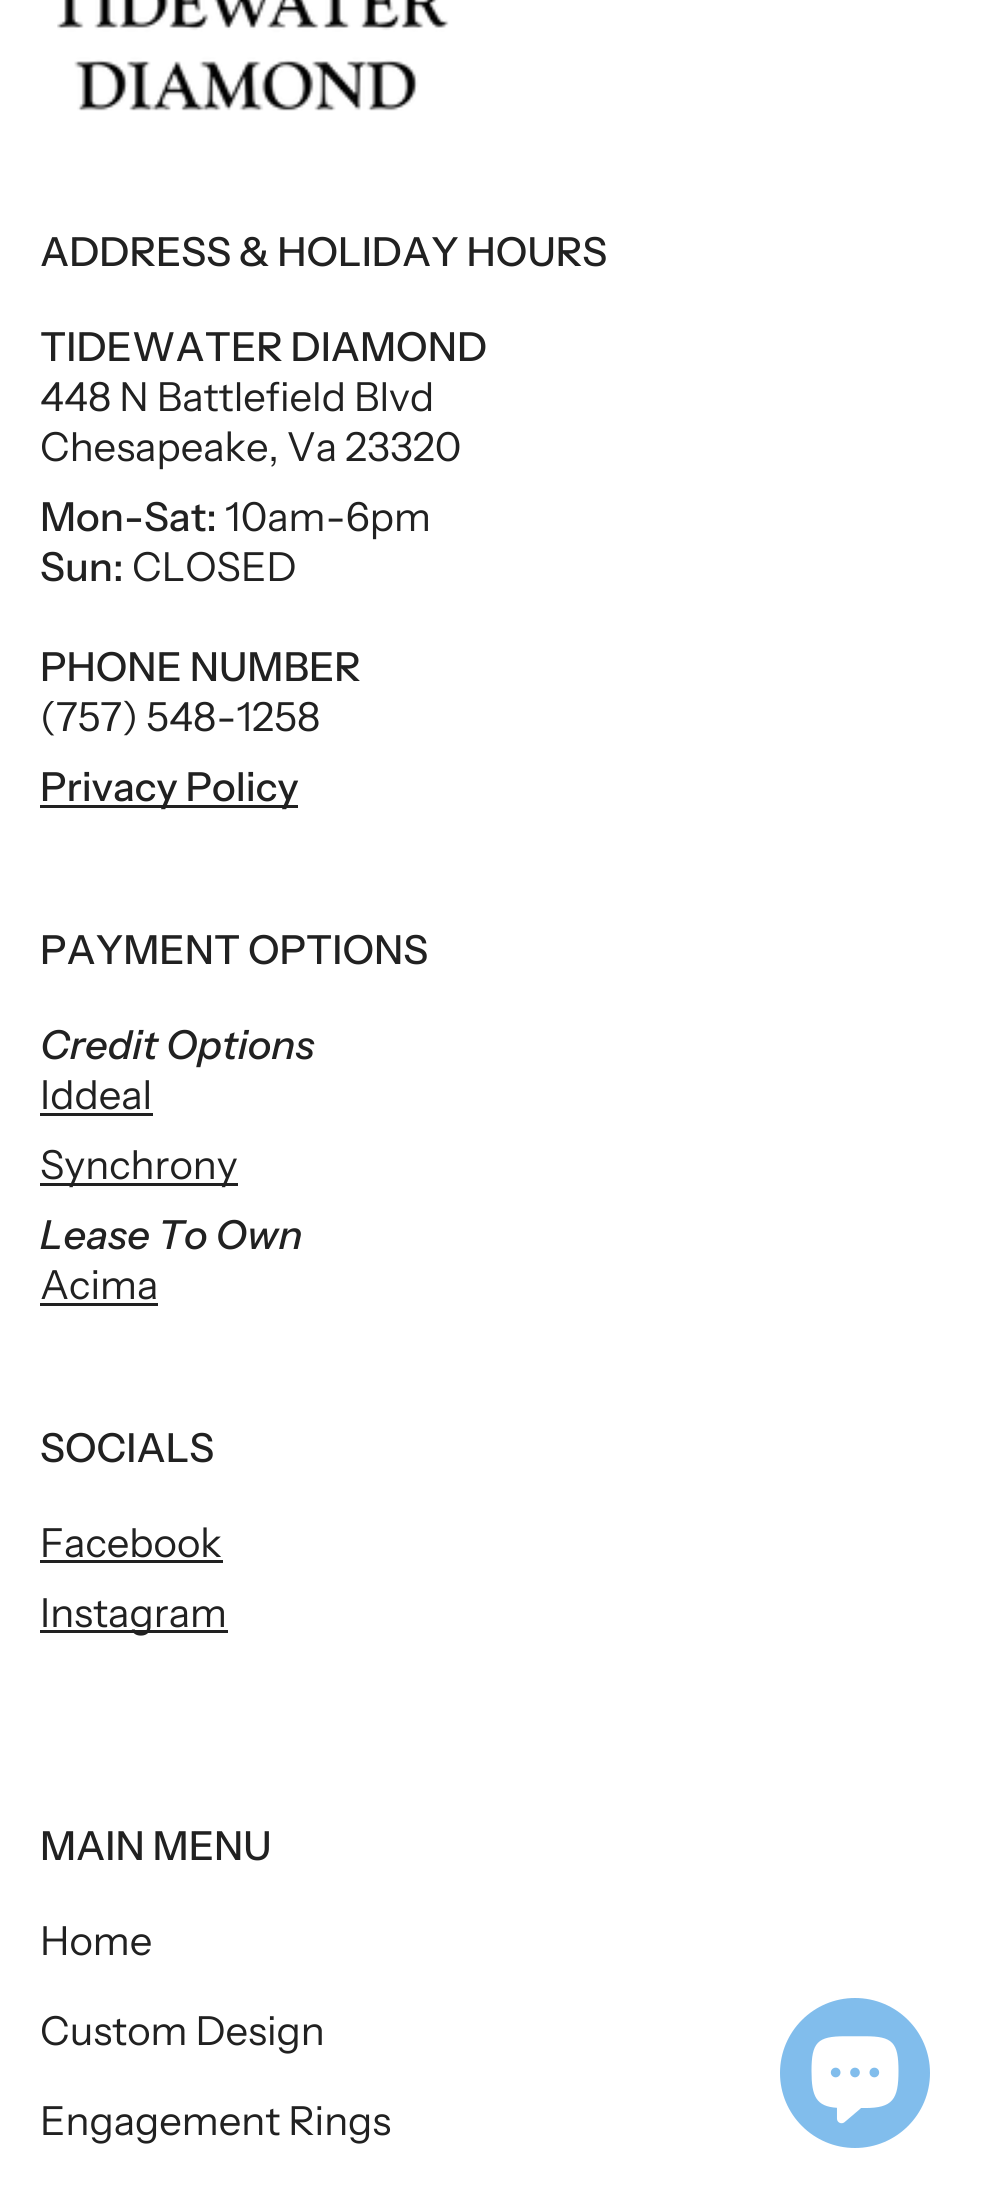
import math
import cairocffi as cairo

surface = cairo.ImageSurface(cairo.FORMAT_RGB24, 983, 2200)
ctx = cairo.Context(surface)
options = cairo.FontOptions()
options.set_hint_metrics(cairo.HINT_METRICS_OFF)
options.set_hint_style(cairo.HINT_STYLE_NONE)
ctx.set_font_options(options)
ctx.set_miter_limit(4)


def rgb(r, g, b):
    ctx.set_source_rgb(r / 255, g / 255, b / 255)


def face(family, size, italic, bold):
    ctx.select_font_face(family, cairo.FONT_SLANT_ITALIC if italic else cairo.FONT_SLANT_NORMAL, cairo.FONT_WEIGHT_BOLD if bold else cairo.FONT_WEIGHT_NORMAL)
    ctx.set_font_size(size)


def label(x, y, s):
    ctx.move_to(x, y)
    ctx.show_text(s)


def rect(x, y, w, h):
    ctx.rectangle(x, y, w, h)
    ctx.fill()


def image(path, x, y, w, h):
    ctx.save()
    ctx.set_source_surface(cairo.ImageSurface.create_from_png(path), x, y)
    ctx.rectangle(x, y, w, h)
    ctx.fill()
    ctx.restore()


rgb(255, 255, 255)
ctx.paint()
image('image0.png', 57, 0, 392, 111)
face('Instrument Sans Medium', 40, 0, 0)
rgb(33, 33, 33)
label(40, 266, 'ADDRESS & HOLIDAY HOURS')
label(40, 361, 'TIDEWATER DIAMOND')
face('Instrument Sans', 40, 0, 0)
label(40, 411, '448 N Battlefield Blvd')
label(40, 461, 'Chesapeake, Va 23320')
face('Instrument Sans Medium', 40, 0, 0)
label(40, 531, 'Mon-Sat:')
face('Instrument Sans', 40, 0, 0)
label(225, 531, '10am-6pm')
face('Instrument Sans Medium', 40, 0, 0)
label(40, 581, 'Sun:')
face('Instrument Sans', 40, 0, 0)
label(132, 581, 'CLOSED')
face('Instrument Sans Medium', 40, 0, 0)
label(40, 681, 'PHONE NUMBER')
face('Instrument Sans', 40, 0, 0)
label(40, 731, '(757) 548-1258')
rect(40, 805, 258, 3)
face('Instrument Sans Medium', 40, 0, 0)
label(40, 801, 'Privacy Policy')
label(40, 964, 'PAYMENT OPTIONS')
face('Instrument Sans Medium', 40, 1, 0)
label(40, 1059, 'Credit Options')
face('Instrument Sans', 40, 0, 0)
label(40, 1109, 'Iddeal')
rect(40, 1113, 113, 3)
rect(40, 1183, 198, 3)
label(40, 1179, 'Synchrony')
face('Instrument Sans Medium', 40, 1, 0)
label(40, 1249, 'Lease To Own')
face('Instrument Sans', 40, 0, 0)
label(40, 1299, 'Acima')
rect(40, 1303, 118, 3)
face('Instrument Sans Medium', 40, 0, 0)
label(40, 1462, 'SOCIALS')
face('Instrument Sans', 40, 0, 0)
label(40, 1557, 'Facebook')
rect(40, 1560, 183, 3)
rect(40, 1630, 188, 3)
label(40, 1627, 'Instagram')
face('Instrument Sans Medium', 40, 0, 0)
label(40, 1860, 'MAIN MENU')
face('Instrument Sans', 40, 0, 0)
label(40, 1955, 'Home')
label(40, 2045, 'Custom Design')
label(40, 2135, 'Engagement Rings')
rgb(129, 189, 236)
ctx.new_path()
ctx.arc(855, 2073, 75, 0, 2 * math.pi)
ctx.fill()
image('image1.png', 811, 2036, 88, 88)
surface.write_to_png('render.png')
